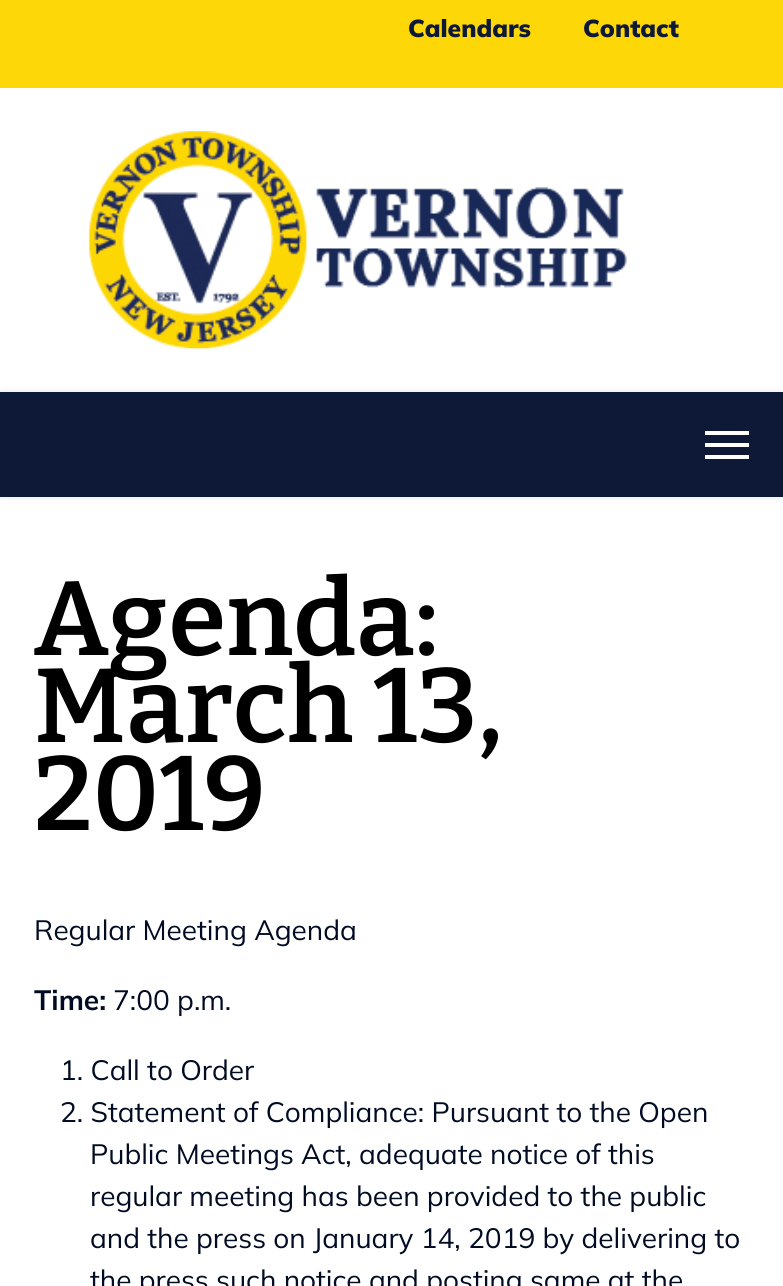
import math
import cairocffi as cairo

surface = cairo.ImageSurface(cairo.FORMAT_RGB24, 783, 1286)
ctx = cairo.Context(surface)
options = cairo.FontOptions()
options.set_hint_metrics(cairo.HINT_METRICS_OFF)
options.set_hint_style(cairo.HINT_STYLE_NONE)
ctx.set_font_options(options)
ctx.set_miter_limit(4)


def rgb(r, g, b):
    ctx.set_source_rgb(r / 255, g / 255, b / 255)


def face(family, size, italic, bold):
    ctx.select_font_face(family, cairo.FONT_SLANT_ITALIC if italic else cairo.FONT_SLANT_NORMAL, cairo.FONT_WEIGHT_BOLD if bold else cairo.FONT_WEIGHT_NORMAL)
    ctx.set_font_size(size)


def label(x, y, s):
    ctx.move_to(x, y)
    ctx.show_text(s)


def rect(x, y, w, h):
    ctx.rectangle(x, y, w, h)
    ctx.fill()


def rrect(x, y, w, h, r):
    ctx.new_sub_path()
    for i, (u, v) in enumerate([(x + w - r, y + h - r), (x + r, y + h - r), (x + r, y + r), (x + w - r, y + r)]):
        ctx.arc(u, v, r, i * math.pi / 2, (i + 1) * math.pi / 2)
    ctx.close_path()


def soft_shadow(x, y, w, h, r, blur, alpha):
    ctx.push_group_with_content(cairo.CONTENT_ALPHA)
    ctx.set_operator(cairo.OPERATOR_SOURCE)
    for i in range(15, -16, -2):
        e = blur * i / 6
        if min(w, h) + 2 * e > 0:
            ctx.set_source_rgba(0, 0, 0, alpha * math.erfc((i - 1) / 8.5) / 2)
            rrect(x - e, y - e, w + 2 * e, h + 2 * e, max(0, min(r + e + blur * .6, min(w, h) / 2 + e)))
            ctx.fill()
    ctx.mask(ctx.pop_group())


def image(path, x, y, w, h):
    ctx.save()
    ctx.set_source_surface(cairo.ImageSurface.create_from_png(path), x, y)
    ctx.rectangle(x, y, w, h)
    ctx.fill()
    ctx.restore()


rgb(255, 255, 255)
ctx.paint()
rgb(253, 215, 7)
rect(0, 0, 783, 88)
face('Mulish Black', 24.5, 0, 0)
rgb(14, 24, 55)
label(408, 37, 'Calendars')
label(583, 37, 'Contact')
image('image0.png', 88, 131, 539, 218)
rgb(0, 0, 0)
soft_shadow(0, 392, 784, 105, 0, 3.5, 0.1)
rgb(14, 24, 55)
rect(0, 392, 783, 105)
rgb(255, 255, 255)
rect(705, 431, 44, 4)
rect(705, 443, 44, 4)
rect(705, 455, 44, 4)
face('Bitter SemiBold', 105, 0, 0)
rgb(0, 0, 0)
label(34, 655, 'Agenda:')
label(34, 742, 'March 13,')
label(34, 830, '2019')
face('Mulish', 28, 0, 0)
rgb(1, 12, 35)
label(34, 940, 'Regular Meeting Agenda')
face('Mulish', 28, 0, 1)
label(34, 1010, 'Time:')
face('Mulish', 28, 0, 0)
label(113, 1010, '7:00 p.m.')
label(60, 1080, '1. Call to Order')
label(60, 1122, '2. Statement of Compliance: Pursuant to the Open')
label(90, 1164, 'Public Meetings Act, adequate notice of this')
label(90, 1206, 'regular meeting has been provided to the public')
label(90, 1248, 'and the press on January 14, 2019 by delivering to')
label(90, 1290, 'the press such notice and posting same at the')
surface.write_to_png('render.png')
